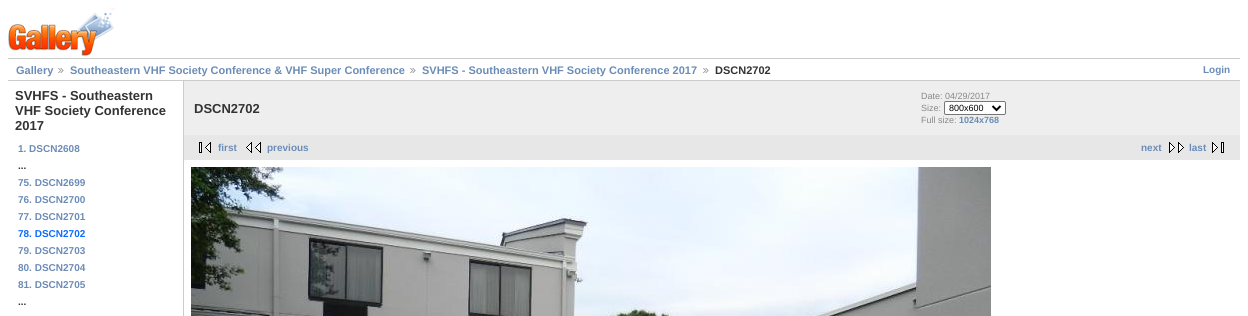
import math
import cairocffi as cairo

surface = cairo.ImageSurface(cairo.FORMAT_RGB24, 1248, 316)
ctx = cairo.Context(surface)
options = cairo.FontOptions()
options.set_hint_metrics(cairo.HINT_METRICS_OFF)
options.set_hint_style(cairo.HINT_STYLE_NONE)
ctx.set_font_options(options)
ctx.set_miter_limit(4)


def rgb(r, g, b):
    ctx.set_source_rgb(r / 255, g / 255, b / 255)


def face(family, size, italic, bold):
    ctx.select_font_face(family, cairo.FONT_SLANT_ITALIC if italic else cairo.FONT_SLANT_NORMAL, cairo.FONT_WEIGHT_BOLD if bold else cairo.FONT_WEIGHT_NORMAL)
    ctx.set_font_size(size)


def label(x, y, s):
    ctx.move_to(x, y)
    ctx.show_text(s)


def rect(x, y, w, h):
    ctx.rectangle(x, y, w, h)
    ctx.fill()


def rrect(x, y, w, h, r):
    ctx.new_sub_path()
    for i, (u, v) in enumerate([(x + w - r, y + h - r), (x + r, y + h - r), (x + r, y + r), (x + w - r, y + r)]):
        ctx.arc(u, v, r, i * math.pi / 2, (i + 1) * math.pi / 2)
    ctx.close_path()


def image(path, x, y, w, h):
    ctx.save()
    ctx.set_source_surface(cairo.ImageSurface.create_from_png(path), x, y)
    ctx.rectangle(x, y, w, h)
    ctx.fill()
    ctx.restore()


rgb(255, 255, 255)
ctx.paint()
image('image0.png', 8, 8, 107, 48)
rgb(204, 204, 204)
rect(8, 58, 1232, 1)
rect(8, 80, 1232, 1)
face('Liberation Sans', 11, 0, 1)
rgb(107, 140, 183)
label(16, 74, 'Gallery')
image('image1.png', 58, 68, 6, 5)
label(70, 74, 'Southeastern VHF Society Conference & VHF Super Conference')
image('image1.png', 410, 68, 6, 5)
label(422, 74, 'SVHFS - Southeastern VHF Society Conference 2017')
image('image1.png', 703, 68, 6, 5)
rgb(51, 51, 51)
label(715, 74, 'DSCN2702')
face('Liberation Sans', 10, 0, 1)
rgb(107, 140, 183)
label(1203, 73, 'Login')
rgb(204, 204, 204)
rect(183, 81, 1, 235)
face('Liberation Sans', 13, 0, 1)
rgb(51, 51, 51)
label(15, 100, 'SVHFS - Southeastern')
label(15, 115, 'VHF Society Conference')
label(15, 130, '2017')
face('Liberation Sans', 10, 0, 1)
rgb(107, 140, 183)
label(18, 152, '1. DSCN2608')
rgb(51, 51, 51)
label(18, 169, '...')
rgb(107, 140, 183)
label(18, 186, '75. DSCN2699')
label(18, 203, '76. DSCN2700')
label(18, 220, '77. DSCN2701')
rgb(11, 108, 255)
label(18, 237, '78. DSCN2702')
rgb(107, 140, 183)
label(18, 254, '79. DSCN2703')
label(18, 271, '80. DSCN2704')
label(18, 288, '81. DSCN2705')
rgb(51, 51, 51)
label(18, 305, '...')
rgb(238, 238, 238)
rect(184, 81, 1056, 54)
face('Liberation Sans', 13, 0, 1)
rgb(51, 51, 51)
label(194, 113, 'DSCN2702')
face('Liberation Sans', 9, 0, 0)
rgb(136, 136, 136)
label(921, 99, 'Date: 04/29/2017')
label(921, 111, 'Size:')
rgb(255, 255, 255)
rrect(944.5, 101.5, 61, 13, 1.5)
ctx.fill_preserve()
rgb(118, 118, 118)
ctx.set_line_width(1)
ctx.stroke()
ctx.new_path()
ctx.move_to(992.5, 106)
ctx.line_to(996.5, 110)
ctx.line_to(1000.5, 106)
rgb(0, 0, 0)
ctx.set_line_width(2)
ctx.stroke()
label(949, 111, '800x600')
rgb(136, 136, 136)
label(921, 123, 'Full size:')
face('Liberation Sans', 9, 0, 1)
rgb(107, 140, 183)
label(959, 123, '1024x768')
rgb(231, 231, 231)
rect(184, 135, 1056, 25)
image('image2.png', 199, 142, 12, 11)
face('Liberation Sans', 10, 0, 1)
rgb(107, 140, 183)
label(218, 151, 'first')
image('image3.png', 246, 142, 15, 11)
label(267, 151, 'previous')
label(1141, 151, 'next')
image('image4.png', 1169, 142, 15, 11)
label(1189, 151, 'last')
image('image5.png', 1212, 142, 12, 11)
image('image6.png', 191, 167, 800, 149)
surface.write_to_png('render.png')
